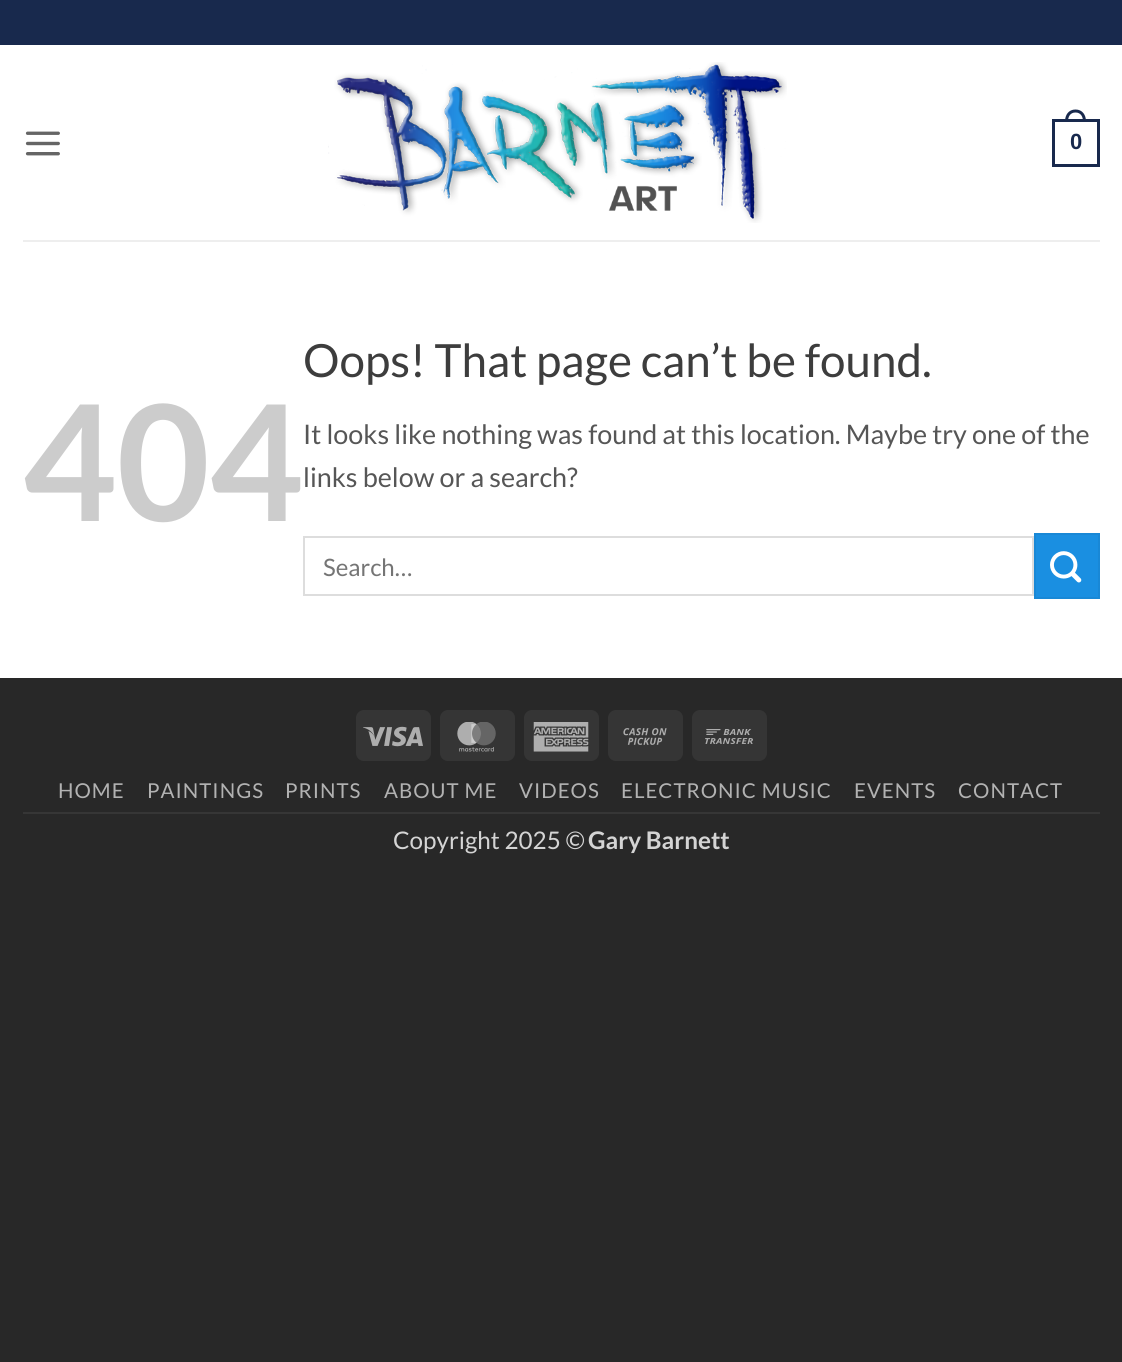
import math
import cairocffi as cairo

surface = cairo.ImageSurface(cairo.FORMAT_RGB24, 1122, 1362)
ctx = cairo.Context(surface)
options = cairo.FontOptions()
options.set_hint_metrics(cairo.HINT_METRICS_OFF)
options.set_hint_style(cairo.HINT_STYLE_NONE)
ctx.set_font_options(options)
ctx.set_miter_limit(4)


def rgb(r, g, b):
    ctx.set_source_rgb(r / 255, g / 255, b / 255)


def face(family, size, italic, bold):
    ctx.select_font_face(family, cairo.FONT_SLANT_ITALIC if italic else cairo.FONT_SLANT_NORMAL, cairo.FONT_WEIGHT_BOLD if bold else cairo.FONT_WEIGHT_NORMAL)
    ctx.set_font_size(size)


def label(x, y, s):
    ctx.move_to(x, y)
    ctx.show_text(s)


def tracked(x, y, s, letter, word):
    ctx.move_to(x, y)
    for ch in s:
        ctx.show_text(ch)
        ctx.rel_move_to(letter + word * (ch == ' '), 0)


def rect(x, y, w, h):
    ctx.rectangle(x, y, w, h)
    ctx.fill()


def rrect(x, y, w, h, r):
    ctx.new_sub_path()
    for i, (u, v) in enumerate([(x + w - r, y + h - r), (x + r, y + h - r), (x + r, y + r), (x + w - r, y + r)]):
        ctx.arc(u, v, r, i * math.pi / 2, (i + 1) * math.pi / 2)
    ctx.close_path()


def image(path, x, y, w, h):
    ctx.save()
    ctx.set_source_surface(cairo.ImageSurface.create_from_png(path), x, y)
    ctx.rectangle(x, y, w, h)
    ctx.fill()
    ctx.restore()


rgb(40, 40, 40)
ctx.paint()
rgb(255, 255, 255)
rect(0, 45, 1122, 633)
rgb(24, 41, 77)
rect(0, 0, 1122, 45)
image('image0.png', 25, 131, 35, 25)
image('image1.png', 328, 62, 459, 161)
ctx.rectangle(1053.5, 120.5, 45, 45)
ctx.set_line_width(3)
ctx.stroke()
ctx.set_fill_rule(cairo.FILL_RULE_EVEN_ODD)
ctx.new_path()
ctx.move_to(1075.5, 109.5)
ctx.curve_to(1082.5, 109.5, 1086, 115, 1086, 121.5)
ctx.line_to(1065, 121.5)
ctx.curve_to(1065, 115, 1068.5, 109.5, 1075.5, 109.5)
ctx.close_path()
ctx.move_to(1075.5, 112.5)
ctx.curve_to(1081, 112.5, 1083, 117, 1083, 121.5)
ctx.line_to(1068, 121.5)
ctx.curve_to(1068, 117, 1070, 112.5, 1075.5, 112.5)
ctx.close_path()
ctx.fill()
face('Liberation Sans', 22, 0, 1)
label(1070, 149, '0')
rgb(238, 238, 238)
rect(23, 240, 1077, 2)
face('Lato', 161, 0, 1)
rgb(204, 204, 204)
label(23, 521, '404')
face('Lato', 45.75, 0, 0)
rgb(61, 61, 61)
label(303, 377, 'Oops! That page can’t be found.')
face('Lato', 26.9, 0, 0)
rgb(86, 86, 86)
label(303, 444, 'It looks like nothing was found at this location. Maybe try one of the')
label(303, 487, 'links below or a search?')
ctx.rectangle(304, 537, 729, 58)
rgb(221, 221, 221)
ctx.set_line_width(2)
ctx.stroke()
face('Lato', 24, 0, 0)
rgb(117, 117, 117)
label(323, 576, 'Search…')
rgb(26, 143, 225)
ctx.rectangle(1035, 534, 64, 64)
ctx.fill_preserve()
rgb(25, 136, 214)
ctx.stroke()
image('image2.png', 1050, 551, 32, 32)
rgb(53, 53, 53)
rrect(356, 710, 75, 51, 8)
ctx.fill()
image('image3.png', 363, 726, 60, 21)
rrect(440, 710, 75, 51, 8)
ctx.fill()
image('image4.png', 457, 722, 39, 30)
rrect(524, 710, 75, 51, 8)
ctx.fill()
image('image5.png', 533, 722, 56, 30)
rrect(608, 710, 75, 51, 8)
ctx.fill()
image('image6.png', 623, 728, 44, 17)
rrect(692, 710, 75, 51, 8)
ctx.fill()
image('image7.png', 705, 729, 48, 15)
rgb(54, 54, 54)
rect(23, 812, 1077, 2)
face('Lato', 20.5, 0, 0)
rgb(178, 178, 178)
tracked(58, 798, 'HOME', 1, 0)
tracked(147, 798, 'PAINTINGS', 1, 0)
tracked(285, 798, 'PRINTS', 1, 0)
tracked(384, 798, 'ABOUT ME', 1, 0)
tracked(519, 798, 'VIDEOS', 1, 0)
tracked(621, 798, 'ELECTRONIC MUSIC', 1, 0)
tracked(854, 798, 'EVENTS', 1, 0)
tracked(958, 798, 'CONTACT', 1, 0)
face('Lato', 24.25, 0, 0)
rgb(212, 212, 212)
label(393, 849, 'Copyright 2025 ©')
face('Lato', 24.25, 0, 1)
label(588, 849, 'Gary Barnett')
surface.write_to_png('render.png')
